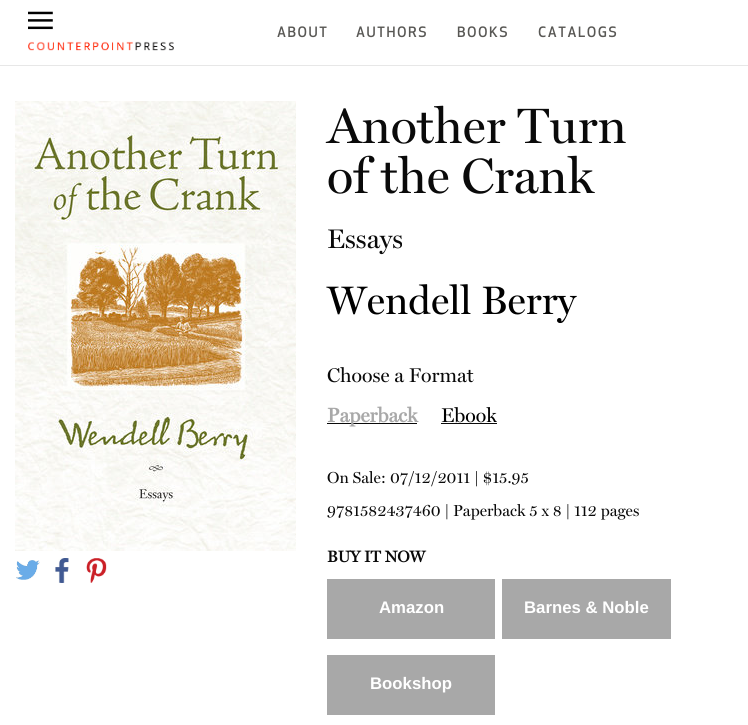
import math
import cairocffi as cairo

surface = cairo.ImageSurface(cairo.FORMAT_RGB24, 748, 725)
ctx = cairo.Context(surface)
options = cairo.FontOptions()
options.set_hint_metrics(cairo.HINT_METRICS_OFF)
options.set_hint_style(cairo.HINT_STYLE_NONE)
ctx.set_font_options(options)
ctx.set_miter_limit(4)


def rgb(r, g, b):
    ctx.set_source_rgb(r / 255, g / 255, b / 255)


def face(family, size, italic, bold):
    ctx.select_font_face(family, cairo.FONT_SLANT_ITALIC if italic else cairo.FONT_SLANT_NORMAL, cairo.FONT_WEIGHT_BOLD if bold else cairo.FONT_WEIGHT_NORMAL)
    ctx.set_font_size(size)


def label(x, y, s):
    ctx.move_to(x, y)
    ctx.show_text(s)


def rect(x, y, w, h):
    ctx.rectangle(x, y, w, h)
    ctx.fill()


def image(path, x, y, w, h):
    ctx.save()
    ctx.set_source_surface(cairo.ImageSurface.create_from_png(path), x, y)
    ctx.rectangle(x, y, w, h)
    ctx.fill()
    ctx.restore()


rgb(255, 255, 255)
ctx.paint()
rgb(231, 231, 231)
rect(0, 65, 748, 1)
image('image0.png', 28, 11, 25, 19)
image('image1.png', 28, 41, 146, 10)
image('image2.png', 277, 26, 50, 12)
image('image3.png', 356, 26, 70, 12)
image('image4.png', 457, 26, 50, 12)
image('image5.png', 538, 26, 79, 12)
image('image6.png', 15, 101, 281, 450)
image('image7.png', 16, 560, 24, 20)
image('image8.png', 55, 558, 14, 25)
image('image9.png', 86, 558, 21, 25)
face('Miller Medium', 50, 0, 0)
rgb(10, 10, 10)
label(327, 143, 'Another Turn')
label(327, 193, 'of the Crank')
face('Miller Medium', 27, 0, 0)
label(327, 248, 'Essays')
face('Miller Medium', 40, 0, 0)
rgb(0, 0, 0)
label(327, 314, 'Wendell Berry')
face('Miller Medium', 20, 0, 0)
rgb(10, 10, 10)
label(327, 382, 'Choose a Format')
rect(327, 423, 90, 1)
face('Miller', 20, 0, 1)
rgb(168, 168, 168)
label(327, 422, 'Paperback')
face('Miller Medium', 20, 0, 0)
rgb(0, 0, 0)
label(441, 422, 'Ebook')
rgb(10, 10, 10)
rect(441, 423, 56, 1)
face('Miller Medium', 16, 0, 0)
label(327, 483, 'On Sale: 07/12/2011 | $15.95')
label(327, 516, '9781582437460 | Paperback 5 x 8 | 112 pages')
face('Miller', 16, 0, 1)
label(327, 562, 'BUY IT NOW')
rgb(168, 168, 168)
rect(327, 579, 168, 60)
face('Liberation Sans', 16.75, 0, 1)
rgb(255, 255, 255)
label(379, 613, 'Amazon')
rgb(168, 168, 168)
rect(502, 579, 169, 60)
rgb(255, 255, 255)
label(524, 613, 'Barnes & Noble')
rgb(168, 168, 168)
rect(327, 655, 168, 60)
rgb(255, 255, 255)
label(370, 689, 'Bookshop')
surface.write_to_png('render.png')
